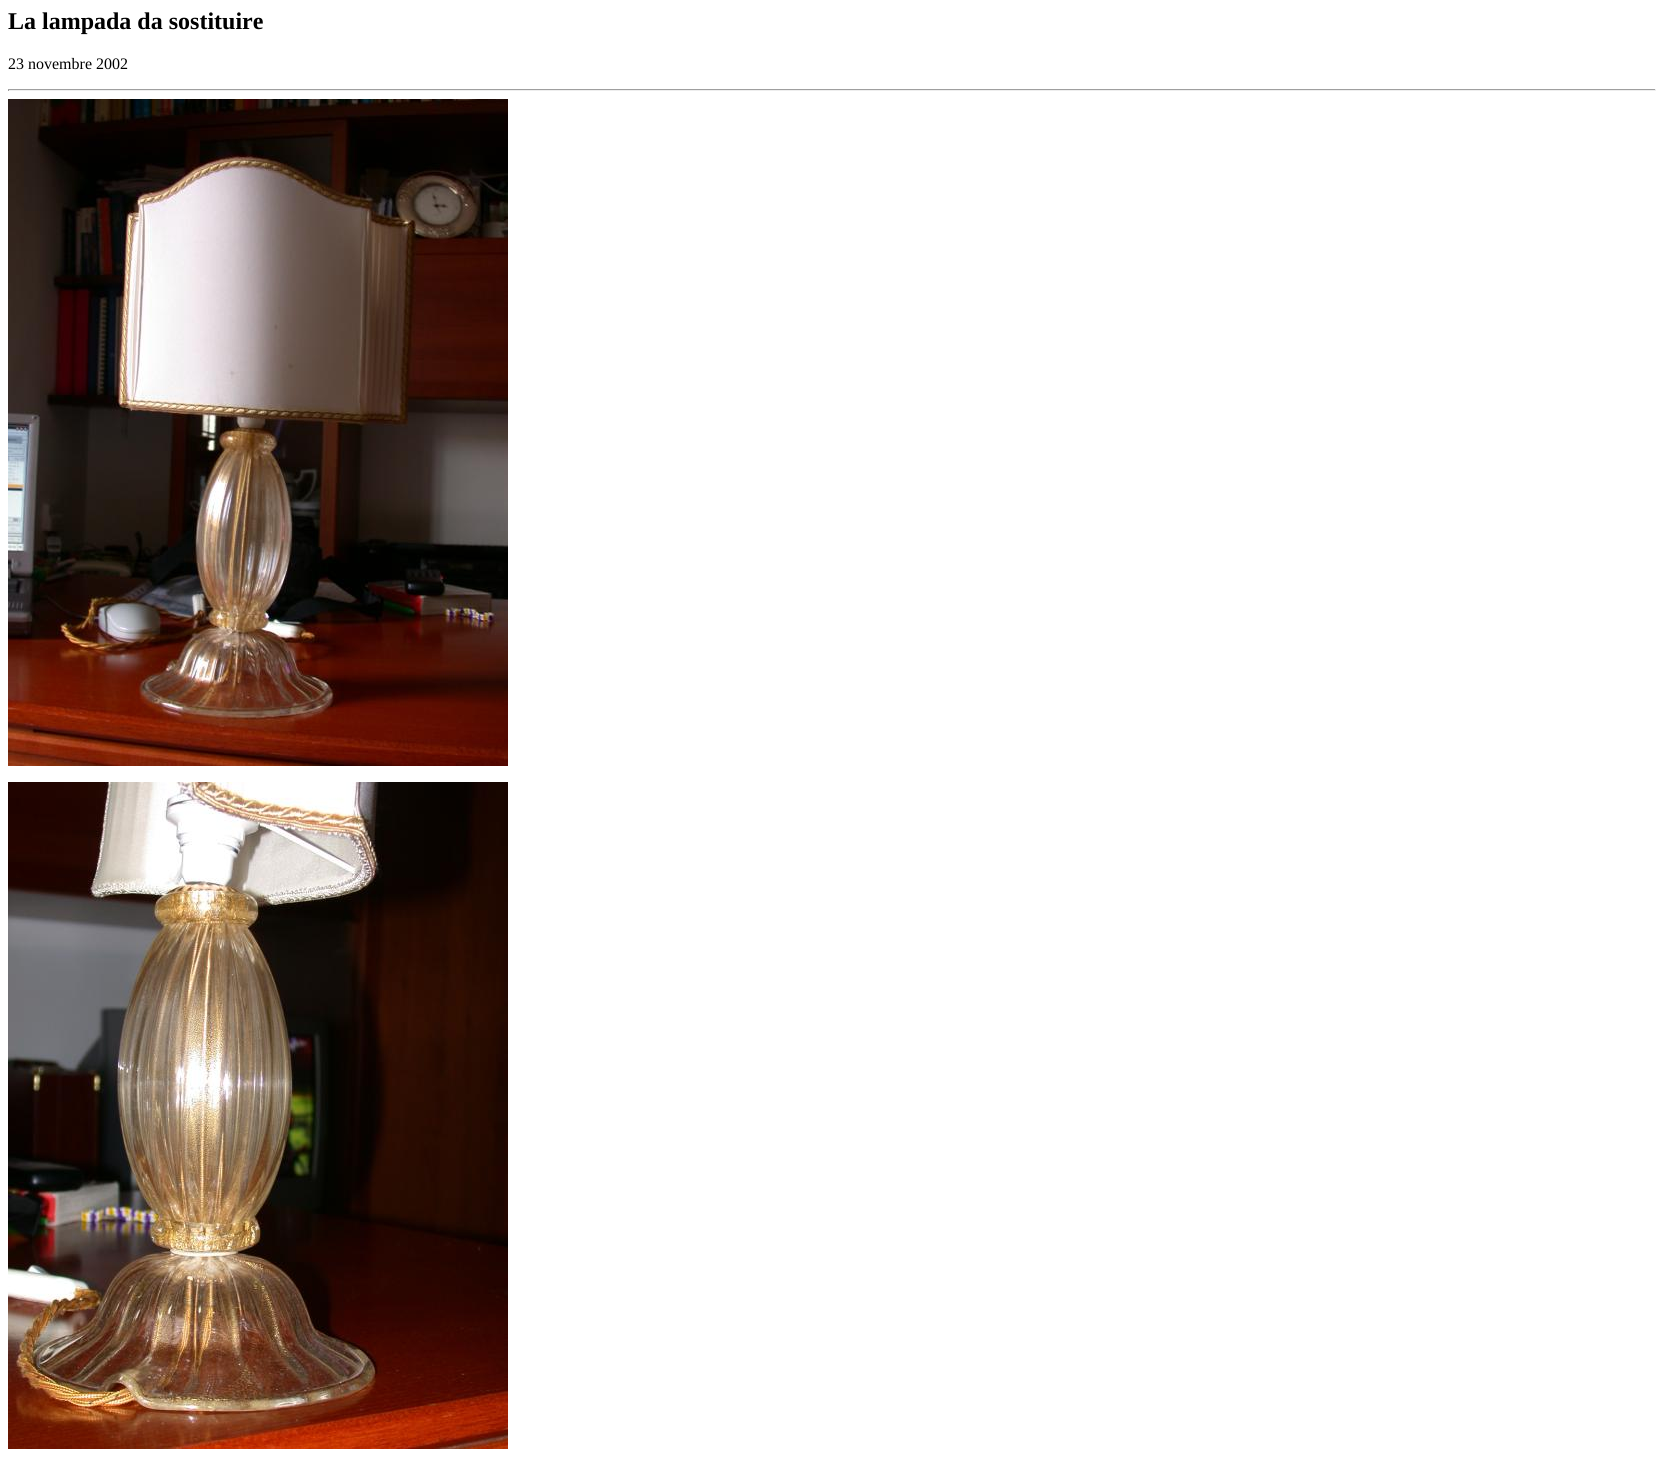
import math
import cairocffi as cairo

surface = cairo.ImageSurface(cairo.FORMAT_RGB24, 1664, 1484)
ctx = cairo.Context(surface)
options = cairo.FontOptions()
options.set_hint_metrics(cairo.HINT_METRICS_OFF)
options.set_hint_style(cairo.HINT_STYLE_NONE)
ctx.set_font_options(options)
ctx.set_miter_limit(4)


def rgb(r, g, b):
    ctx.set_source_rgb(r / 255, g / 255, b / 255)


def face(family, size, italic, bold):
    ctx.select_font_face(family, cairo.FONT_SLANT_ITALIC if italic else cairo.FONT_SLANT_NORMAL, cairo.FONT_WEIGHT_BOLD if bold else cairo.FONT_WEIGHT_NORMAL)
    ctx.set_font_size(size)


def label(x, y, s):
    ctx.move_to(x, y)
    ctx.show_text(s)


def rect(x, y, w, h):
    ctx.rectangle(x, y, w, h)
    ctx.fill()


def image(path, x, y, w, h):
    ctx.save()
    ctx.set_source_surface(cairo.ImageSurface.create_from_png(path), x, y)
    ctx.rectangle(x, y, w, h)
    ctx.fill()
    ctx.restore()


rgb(255, 255, 255)
ctx.paint()
face('Liberation Serif', 24, 0, 1)
rgb(0, 0, 0)
label(8, 29, 'La lampada da sostituire')
face('Liberation Serif', 16, 0, 0)
label(8, 69, '23 novembre 2002')
rgb(159, 159, 159)
rect(8, 89, 1648, 1)
rgb(238, 238, 238)
rect(1655, 89, 1, 2)
rect(8, 90, 1648, 1)
rgb(159, 159, 159)
rect(8, 89, 1, 2)
image('image0.png', 8, 99, 500, 667)
image('image1.png', 8, 782, 500, 667)
surface.write_to_png('render.png')
